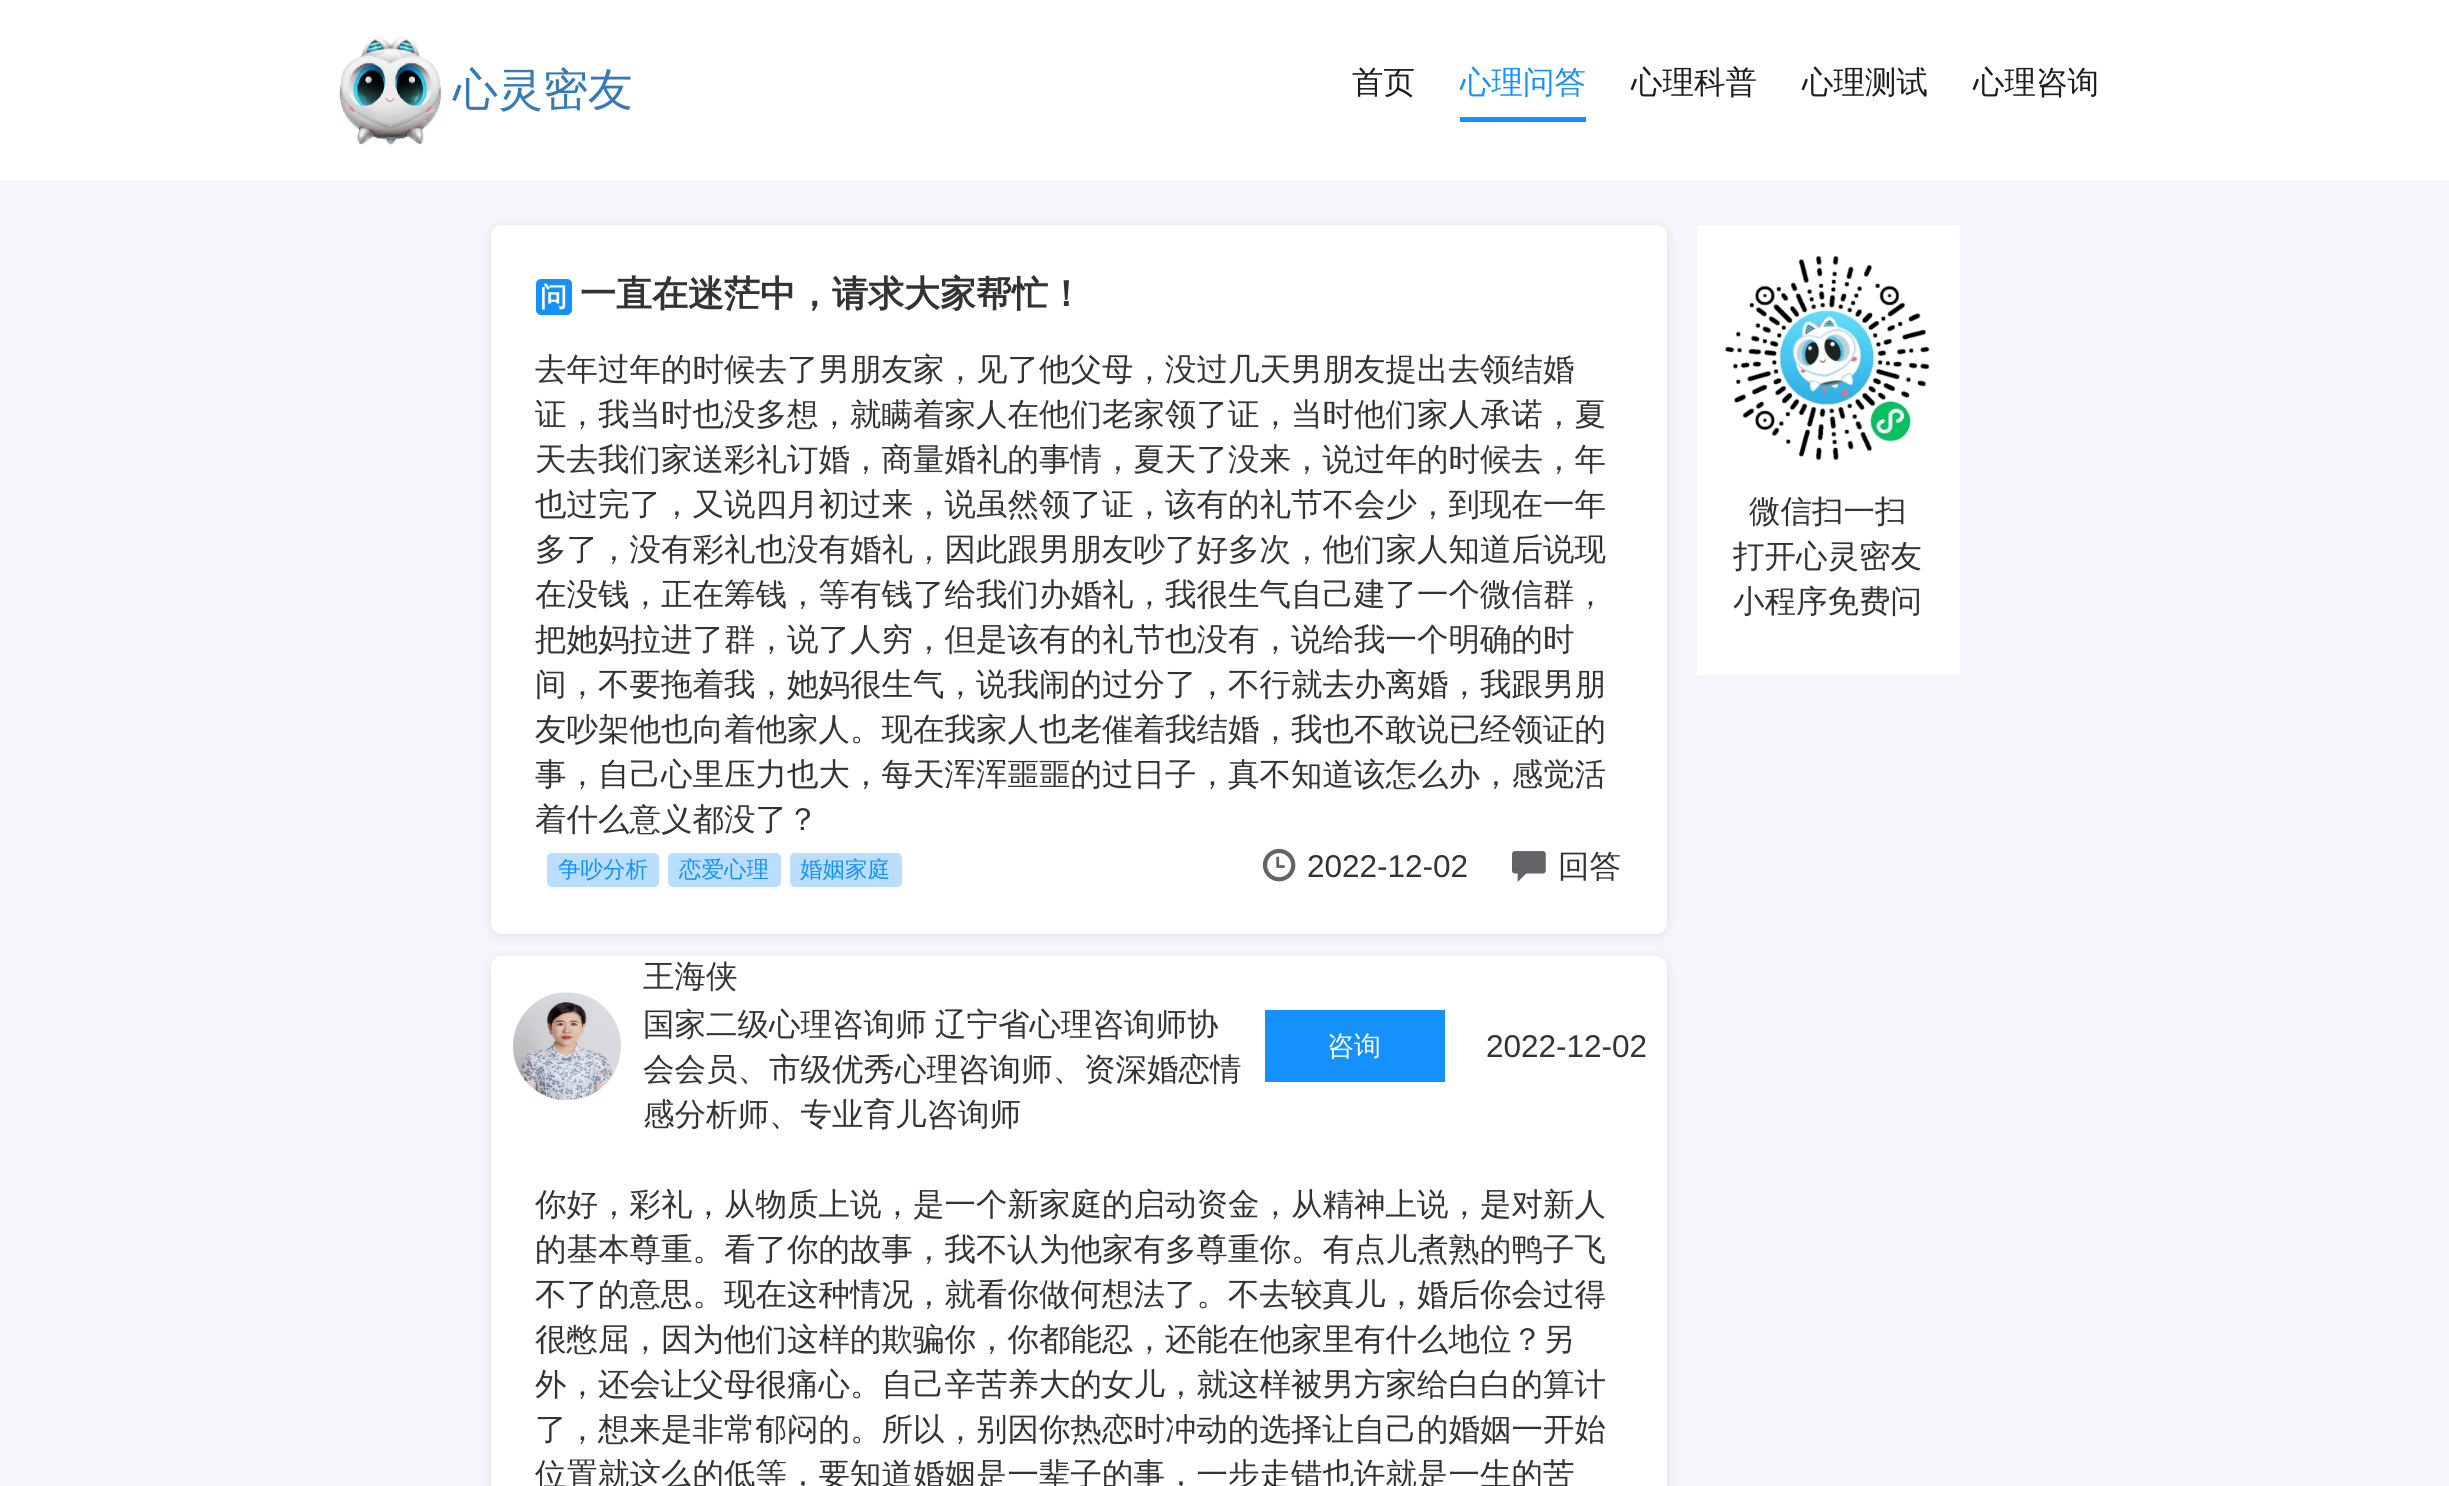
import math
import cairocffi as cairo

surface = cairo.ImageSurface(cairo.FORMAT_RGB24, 2449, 1486)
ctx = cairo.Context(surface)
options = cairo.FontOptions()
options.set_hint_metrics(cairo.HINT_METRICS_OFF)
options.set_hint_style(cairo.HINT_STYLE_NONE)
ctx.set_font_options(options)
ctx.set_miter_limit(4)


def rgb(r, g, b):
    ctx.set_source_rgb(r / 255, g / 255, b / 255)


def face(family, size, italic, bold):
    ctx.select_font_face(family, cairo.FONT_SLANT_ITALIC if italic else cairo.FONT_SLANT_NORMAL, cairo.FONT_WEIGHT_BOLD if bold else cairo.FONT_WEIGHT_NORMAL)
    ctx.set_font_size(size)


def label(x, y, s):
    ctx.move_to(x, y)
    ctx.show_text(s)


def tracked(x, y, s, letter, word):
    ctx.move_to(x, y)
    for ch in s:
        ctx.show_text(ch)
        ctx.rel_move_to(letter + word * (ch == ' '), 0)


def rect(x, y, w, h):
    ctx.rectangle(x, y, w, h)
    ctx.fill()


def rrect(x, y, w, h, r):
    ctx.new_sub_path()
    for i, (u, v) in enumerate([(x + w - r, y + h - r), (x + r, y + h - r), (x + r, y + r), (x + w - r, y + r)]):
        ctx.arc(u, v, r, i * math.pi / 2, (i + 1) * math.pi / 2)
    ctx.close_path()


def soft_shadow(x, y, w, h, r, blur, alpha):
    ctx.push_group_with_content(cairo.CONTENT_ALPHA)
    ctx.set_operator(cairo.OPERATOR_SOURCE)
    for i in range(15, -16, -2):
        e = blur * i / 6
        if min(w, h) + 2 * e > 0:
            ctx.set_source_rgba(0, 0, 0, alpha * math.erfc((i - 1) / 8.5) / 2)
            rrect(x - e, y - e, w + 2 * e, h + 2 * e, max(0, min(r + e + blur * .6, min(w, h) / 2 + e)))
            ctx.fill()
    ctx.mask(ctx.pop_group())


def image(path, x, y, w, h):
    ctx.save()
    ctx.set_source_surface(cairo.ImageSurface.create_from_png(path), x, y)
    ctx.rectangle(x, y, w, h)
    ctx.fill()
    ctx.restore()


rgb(244, 246, 252)
ctx.paint()
rgb(255, 255, 255)
rect(0, 0, 2449, 180)
image('image0.png', 339, 36, 103, 109)
face('WenQuanYi Zen Hei Medium', 45, 0, 0)
rgb(51, 122, 183)
label(453, 105, '心灵密友')
face('WenQuanYi Zen Hei Medium', 31.5, 0, 0)
rgb(29, 29, 31)
label(1352, 93, '首页')
rgb(21, 145, 254)
rect(1460, 117, 126, 5)
label(1460, 93, '心理问答')
rgb(29, 29, 31)
label(1631, 93, '心理科普')
label(1802, 93, '心理测试')
label(1973, 93, '心理咨询')
rgb(38, 38, 38)
soft_shadow(491, 227, 1176, 709, 11, 5.5, 0.1)
rgb(255, 255, 255)
rrect(491, 225, 1176, 709, 11)
ctx.fill()
rgb(21, 145, 254)
rrect(536, 279, 36, 36, 5)
ctx.fill()
face('WenQuanYi Zen Hei', 27, 0, 1)
rgb(255, 255, 255)
label(540, 306, '问')
face('WenQuanYi Zen Hei', 36, 0, 1)
rgb(51, 51, 51)
label(580, 306, '一直在迷茫中，请求大家帮忙！')
face('WenQuanYi Zen Hei Medium', 31.5, 0, 0)
label(535, 380, '去年过年的时候去了男朋友家，见了他父母，没过几天男朋友提出去领结婚')
label(535, 425, '证，我当时也没多想，就瞒着家人在他们老家领了证，当时他们家人承诺，夏')
label(535, 470, '天去我们家送彩礼订婚，商量婚礼的事情，夏天了没来，说过年的时候去，年')
label(535, 515, '也过完了，又说四月初过来，说虽然领了证，该有的礼节不会少，到现在一年')
label(535, 560, '多了，没有彩礼也没有婚礼，因此跟男朋友吵了好多次，他们家人知道后说现')
label(535, 605, '在没钱，正在筹钱，等有钱了给我们办婚礼，我很生气自己建了一个微信群，')
label(535, 650, '把她妈拉进了群，说了人穷，但是该有的礼节也没有，说给我一个明确的时')
label(535, 695, '间，不要拖着我，她妈很生气，说我闹的过分了，不行就去办离婚，我跟男朋')
label(535, 740, '友吵架他也向着他家人。现在我家人也老催着我结婚，我也不敢说已经领证的')
label(535, 785, '事，自己心里压力也大，每天浑浑噩噩的过日子，真不知道该怎么办，感觉活')
label(535, 830, '着什么意义都没了？')
rgb(185, 222, 255)
rrect(547, 853, 112, 34, 5)
ctx.fill()
face('WenQuanYi Zen Hei Medium', 22.5, 0, 0)
rgb(21, 145, 254)
label(558, 877, '争吵分析')
rgb(185, 222, 255)
rrect(668, 853, 113, 34, 5)
ctx.fill()
rgb(21, 145, 254)
label(679, 877, '恋爱心理')
rgb(185, 222, 255)
rrect(790, 853, 112, 34, 5)
ctx.fill()
rgb(21, 145, 254)
label(800, 877, '婚姻家庭')
image('image1.png', 1262, 848, 34, 34)
face('Liberation Sans', 31.5, 0, 0)
rgb(51, 51, 51)
label(1307, 877, '2022-12-02')
image('image2.png', 1512, 851, 34, 31)
face('WenQuanYi Zen Hei Medium', 31.5, 0, 0)
label(1558, 877, '回答')
rgb(38, 38, 38)
soft_shadow(491, 959, 1176, 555, 11, 5.5, 0.1)
rgb(255, 255, 255)
rrect(491, 956, 1176, 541, 11)
ctx.fill()
image('image3.png', 513, 992, 108, 108)
rgb(51, 51, 51)
label(643, 987, '王海侠')
tracked(643, 1035, '国家二级心理咨询师 辽宁省心理咨询师协', 0, -1)
label(643, 1080, '会会员、市级优秀心理咨询师、资深婚恋情')
label(643, 1125, '感分析师、专业育儿咨询师')
rgb(21, 145, 254)
rect(1265, 1010, 180, 72)
face('WenQuanYi Zen Hei Medium', 27, 0, 0)
rgb(255, 255, 255)
label(1327, 1055, '咨询')
face('Liberation Sans', 31.5, 0, 0)
rgb(51, 51, 51)
label(1486, 1057, '2022-12-02')
face('WenQuanYi Zen Hei Medium', 31.5, 0, 0)
label(535, 1215, '你好，彩礼，从物质上说，是一个新家庭的启动资金，从精神上说，是对新人')
label(535, 1260, '的基本尊重。看了你的故事，我不认为他家有多尊重你。有点儿煮熟的鸭子飞')
label(535, 1305, '不了的意思。现在这种情况，就看你做何想法了。不去较真儿，婚后你会过得')
label(535, 1350, '很憋屈，因为他们这样的欺骗你，你都能忍，还能在他家里有什么地位？另')
label(535, 1395, '外，还会让父母很痛心。自己辛苦养大的女儿，就这样被男方家给白白的算计')
label(535, 1440, '了，想来是非常郁闷的。所以，别因你热恋时冲动的选择让自己的婚姻一开始')
label(535, 1485, '位置就这么的低等，要知道婚姻是一辈子的事，一步走错也许就是一生的苦')
rgb(255, 255, 255)
rect(1697, 225, 263, 450)
image('image4.png', 1725, 255, 205, 206)
rgb(51, 51, 51)
label(1749, 522, '微信扫一扫')
label(1733, 567, '打开心灵密友')
label(1733, 612, '小程序免费问')
surface.write_to_png('render.png')
